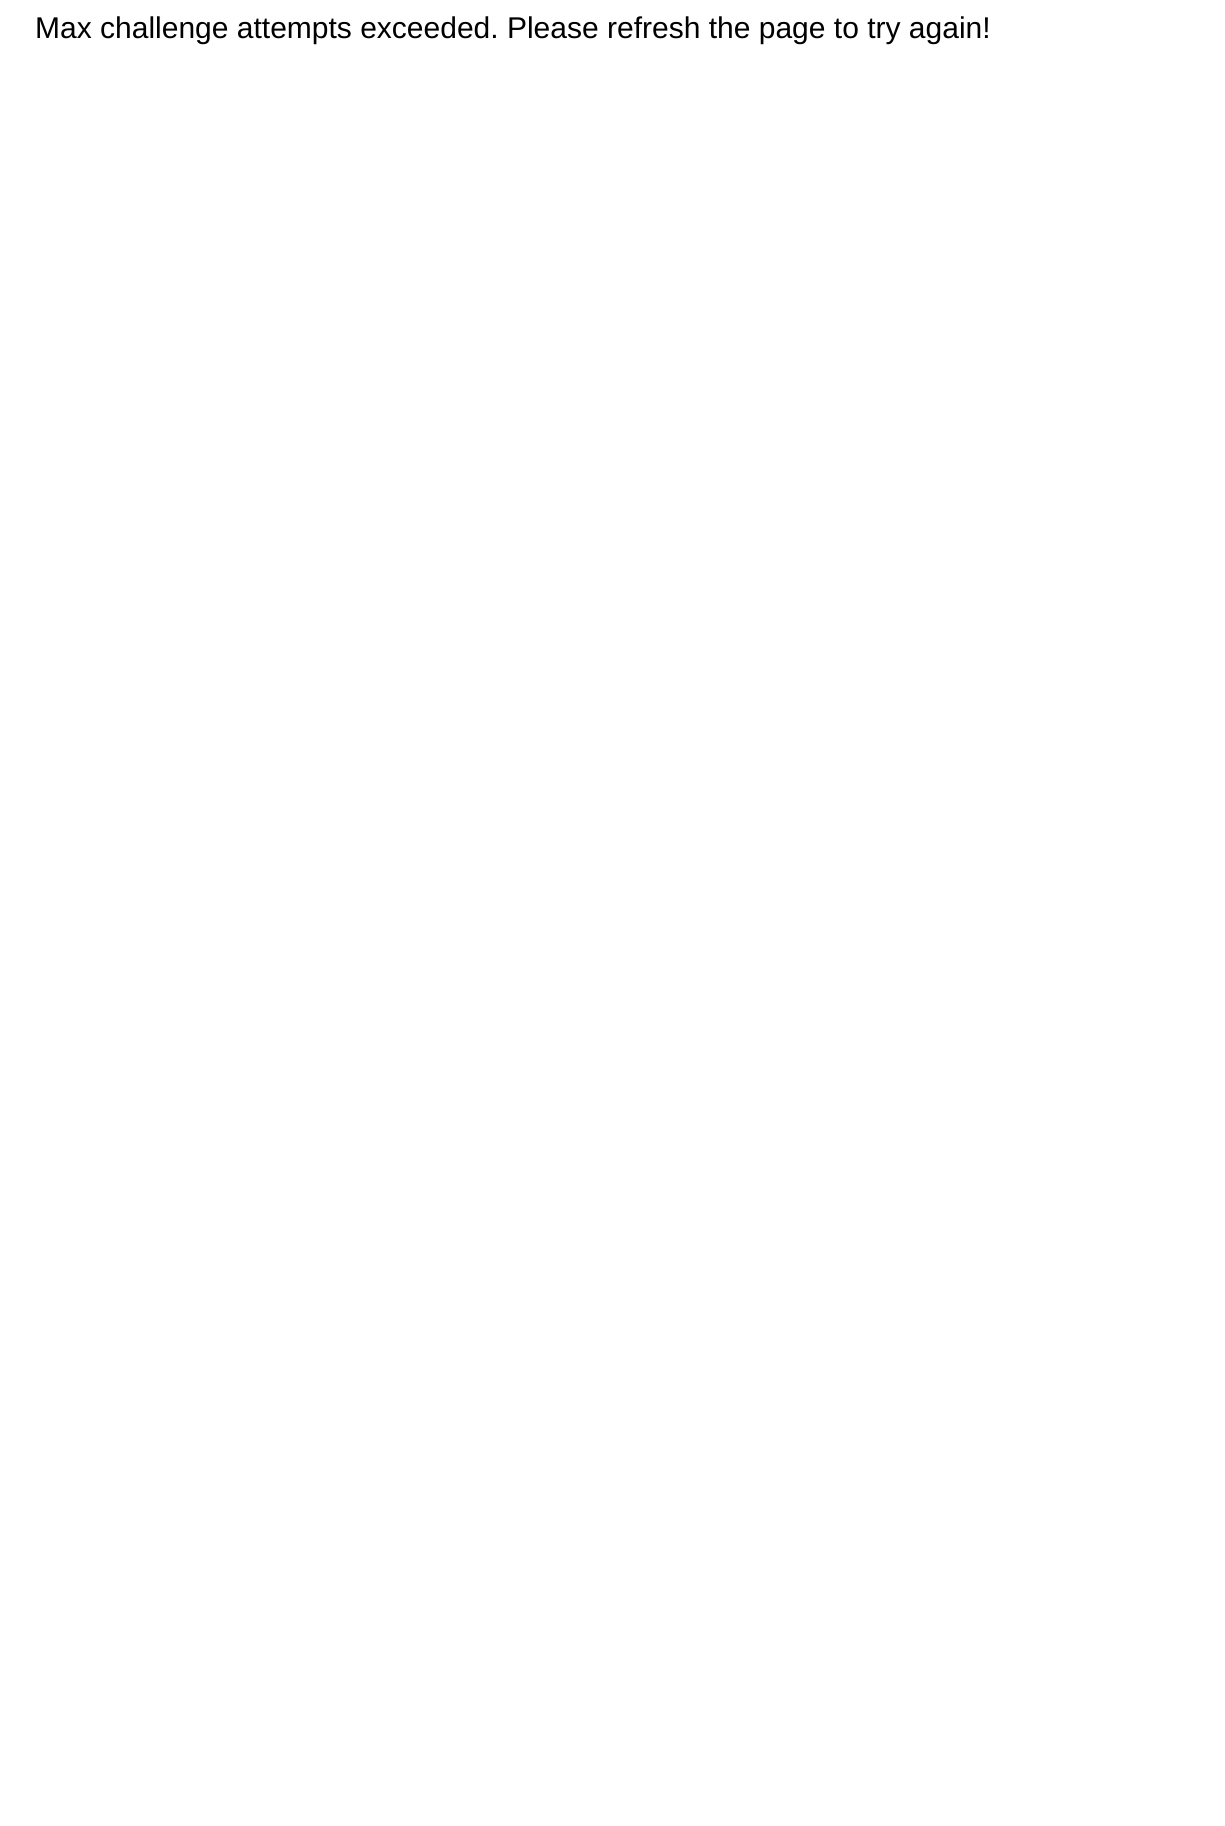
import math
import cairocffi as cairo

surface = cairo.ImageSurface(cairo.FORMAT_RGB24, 1225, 1826)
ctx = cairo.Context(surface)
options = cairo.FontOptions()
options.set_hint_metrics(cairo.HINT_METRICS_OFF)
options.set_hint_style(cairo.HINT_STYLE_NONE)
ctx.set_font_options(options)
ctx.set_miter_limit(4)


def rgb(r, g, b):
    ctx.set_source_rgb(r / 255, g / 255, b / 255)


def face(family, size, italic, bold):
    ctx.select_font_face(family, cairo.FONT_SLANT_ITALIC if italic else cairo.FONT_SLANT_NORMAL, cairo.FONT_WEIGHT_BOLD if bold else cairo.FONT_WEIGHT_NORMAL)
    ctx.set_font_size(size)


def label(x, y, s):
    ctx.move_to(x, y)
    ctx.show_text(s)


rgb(255, 255, 255)
ctx.paint()
face('Liberation Sans', 30, 0, 0)
rgb(0, 0, 0)
label(35, 38, 'Max challenge attempts exceeded. Please refresh the page to try again!')
surface.write_to_png('render.png')
